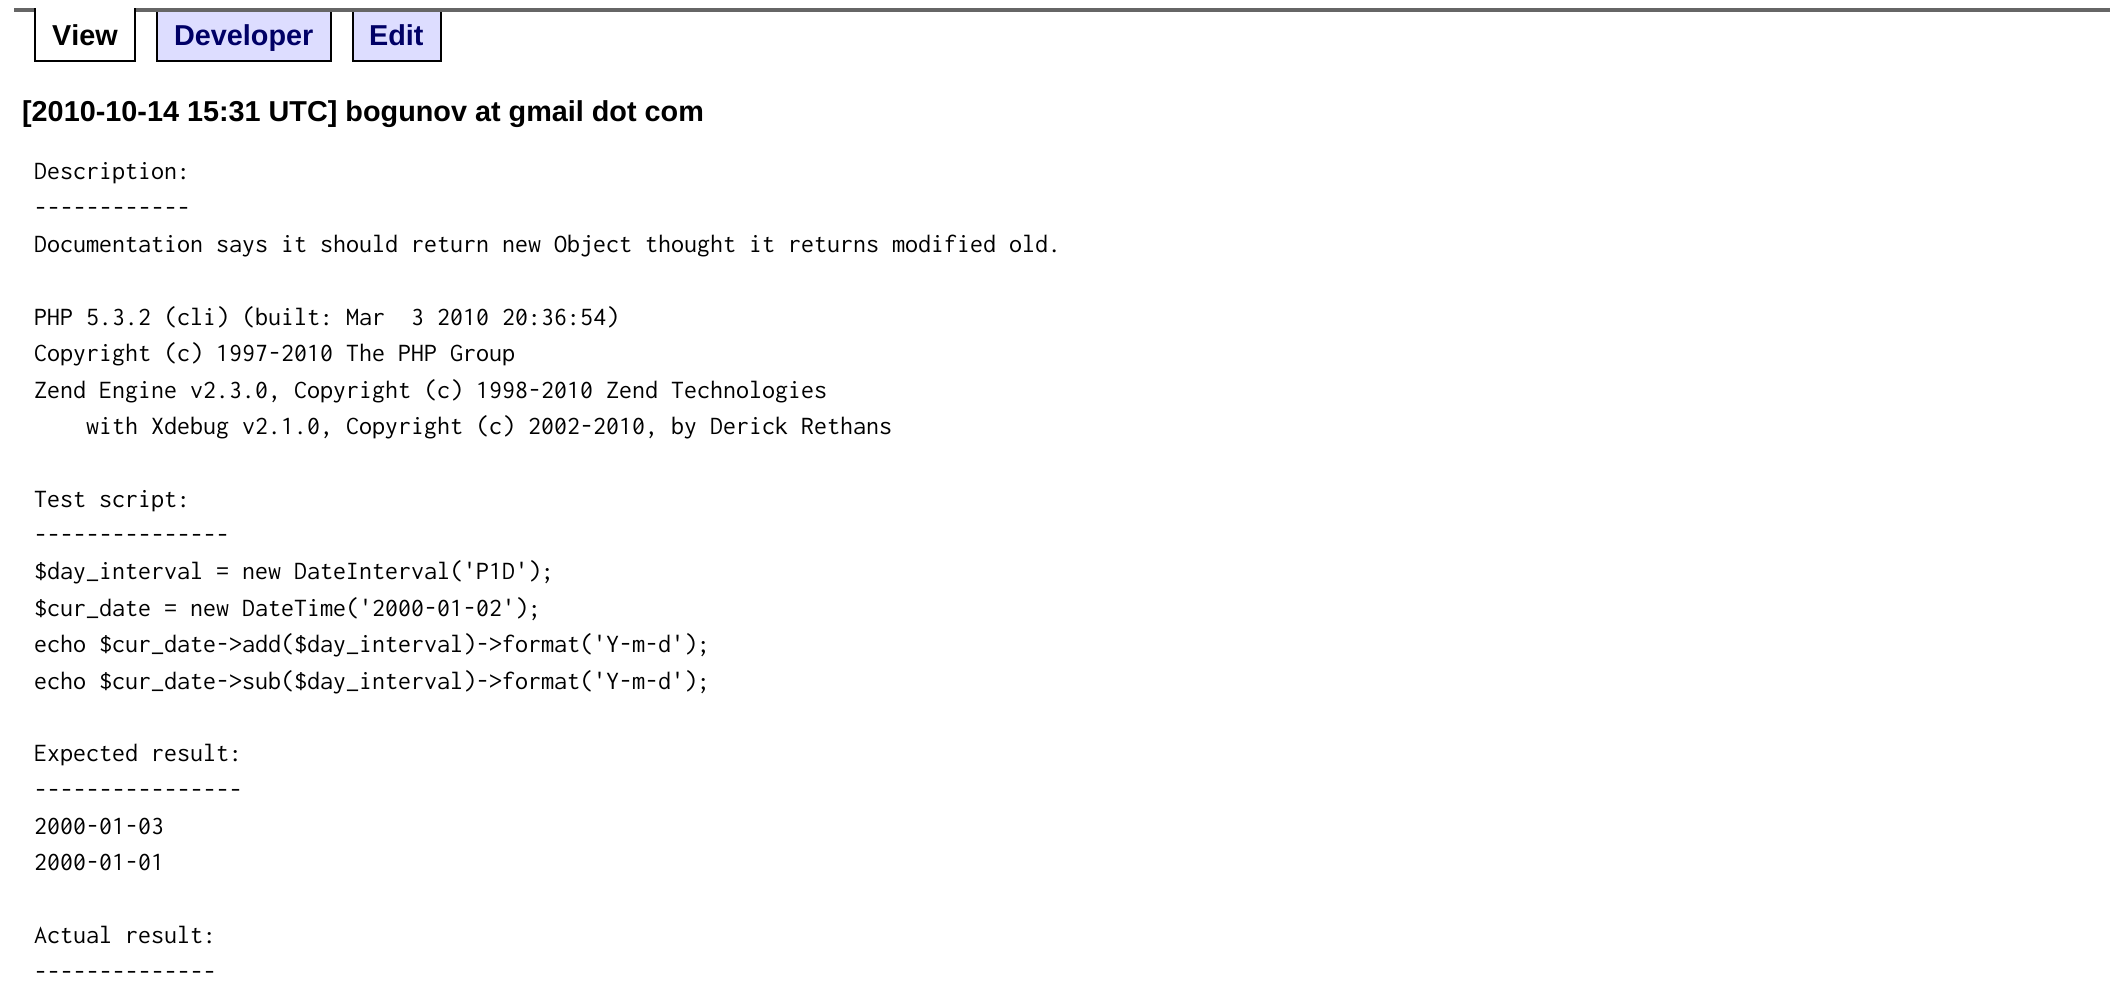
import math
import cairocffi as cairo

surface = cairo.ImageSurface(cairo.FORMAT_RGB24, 2123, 989)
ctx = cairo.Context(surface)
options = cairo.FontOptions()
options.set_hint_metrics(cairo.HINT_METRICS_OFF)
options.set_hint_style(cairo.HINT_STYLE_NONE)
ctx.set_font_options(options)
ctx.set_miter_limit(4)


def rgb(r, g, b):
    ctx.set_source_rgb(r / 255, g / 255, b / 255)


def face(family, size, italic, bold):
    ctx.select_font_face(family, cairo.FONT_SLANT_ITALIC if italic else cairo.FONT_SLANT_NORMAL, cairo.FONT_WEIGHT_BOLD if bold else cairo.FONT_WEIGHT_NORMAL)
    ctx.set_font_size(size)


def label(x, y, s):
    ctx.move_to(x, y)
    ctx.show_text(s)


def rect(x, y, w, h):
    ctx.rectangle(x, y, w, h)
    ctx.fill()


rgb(255, 255, 255)
ctx.paint()
rgb(102, 102, 102)
rect(14, 8, 2096, 4)
rgb(255, 255, 255)
rect(36, 8, 98, 4)
rgb(0, 0, 0)
rect(134, 8, 2, 54)
rect(34, 60, 102, 2)
rect(34, 8, 2, 54)
face('Liberation Sans', 28.8, 0, 1)
label(52, 45, 'View')
rgb(221, 221, 255)
rect(158, 12, 172, 48)
rgb(0, 0, 0)
rect(330, 12, 2, 50)
rect(156, 60, 176, 2)
rect(156, 12, 2, 50)
rgb(0, 0, 102)
label(174, 45, 'Developer')
rgb(221, 221, 255)
rect(354, 12, 86, 48)
rgb(0, 0, 0)
rect(440, 12, 2, 50)
rect(352, 60, 90, 2)
rect(352, 12, 2, 50)
rgb(0, 0, 102)
label(369, 45, 'Edit')
rgb(0, 0, 0)
label(22, 121, '[2010-10-14 15:31 UTC] bogunov at gmail dot com')
face('Inconsolata', 26, 0, 0)
label(34, 179, 'Description:')
label(34, 216, '------------')
label(34, 252, 'Documentation says it should return new Object thought it returns modified old.')
label(34, 325, 'PHP 5.3.2 (cli) (built: Mar  3 2010 20:36:54)')
label(34, 361, 'Copyright (c) 1997-2010 The PHP Group')
label(34, 398, 'Zend Engine v2.3.0, Copyright (c) 1998-2010 Zend Technologies')
label(86, 434, 'with Xdebug v2.1.0, Copyright (c) 2002-2010, by Derick Rethans')
label(34, 507, 'Test script:')
label(34, 543, '---------------')
label(34, 579, '$day_interval = new DateInterval(\'P1D\');')
label(34, 616, '$cur_date = new DateTime(\'2000-01-02\');')
label(34, 652, 'echo $cur_date->add($day_interval)->format(\'Y-m-d\');')
label(34, 689, 'echo $cur_date->sub($day_interval)->format(\'Y-m-d\');')
label(34, 761, 'Expected result:')
label(34, 798, '----------------')
label(34, 834, '2000-01-03')
label(34, 870, '2000-01-01')
label(34, 943, 'Actual result:')
label(34, 980, '--------------')
surface.write_to_png('render.png')
